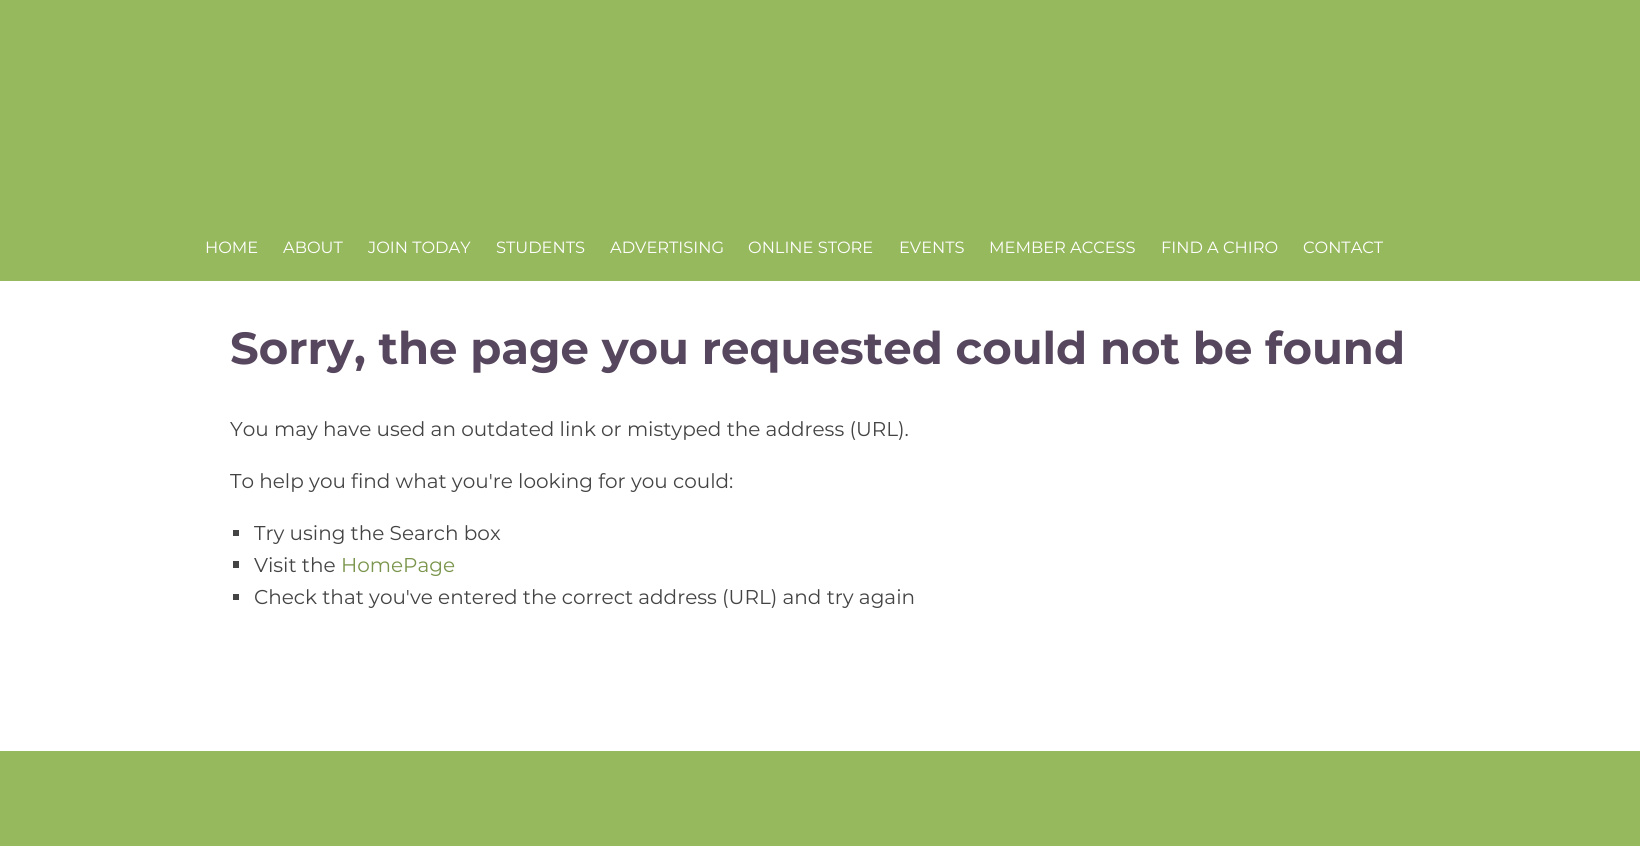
import math
import cairocffi as cairo

surface = cairo.ImageSurface(cairo.FORMAT_RGB24, 1640, 846)
ctx = cairo.Context(surface)
options = cairo.FontOptions()
options.set_hint_metrics(cairo.HINT_METRICS_OFF)
options.set_hint_style(cairo.HINT_STYLE_NONE)
ctx.set_font_options(options)
ctx.set_miter_limit(4)


def rgb(r, g, b):
    ctx.set_source_rgb(r / 255, g / 255, b / 255)


def face(family, size, italic, bold):
    ctx.select_font_face(family, cairo.FONT_SLANT_ITALIC if italic else cairo.FONT_SLANT_NORMAL, cairo.FONT_WEIGHT_BOLD if bold else cairo.FONT_WEIGHT_NORMAL)
    ctx.set_font_size(size)


def label(x, y, s):
    ctx.move_to(x, y)
    ctx.show_text(s)


def rect(x, y, w, h):
    ctx.rectangle(x, y, w, h)
    ctx.fill()


rgb(255, 255, 255)
ctx.paint()
rgb(151, 185, 94)
rect(0, 0, 1640, 281)
face('Montserrat', 16.25, 0, 0)
rgb(255, 255, 255)
label(205, 253, 'HOME')
label(283, 253, 'ABOUT')
label(368, 253, 'JOIN TODAY')
label(496, 253, 'STUDENTS')
label(610, 253, 'ADVERTISING')
label(748, 253, 'ONLINE STORE')
label(899, 253, 'EVENTS')
label(989, 253, 'MEMBER ACCESS')
label(1161, 253, 'FIND A CHIRO')
label(1303, 253, 'CONTACT')
face('Montserrat', 45, 0, 1)
rgb(87, 71, 94)
label(230, 364, 'Sorry, the page you requested could not be found')
face('Montserrat', 20, 0, 0)
rgb(68, 68, 68)
label(230, 436, 'You may have used an outdated link or mistyped the address (URL).')
label(230, 488, 'To help you find what you\'re looking for you could:')
rect(233, 530, 6, 6)
label(254, 540, 'Try using the Search box')
rect(233, 561, 6, 7)
label(254, 572, 'Visit the')
rgb(122, 149, 76)
label(341, 572, 'HomePage')
rgb(68, 68, 68)
rect(233, 594, 6, 6)
label(254, 604, 'Check that you\'ve entered the correct address (URL) and try again')
rgb(151, 185, 94)
rect(0, 751, 1640, 95)
surface.write_to_png('render.png')
